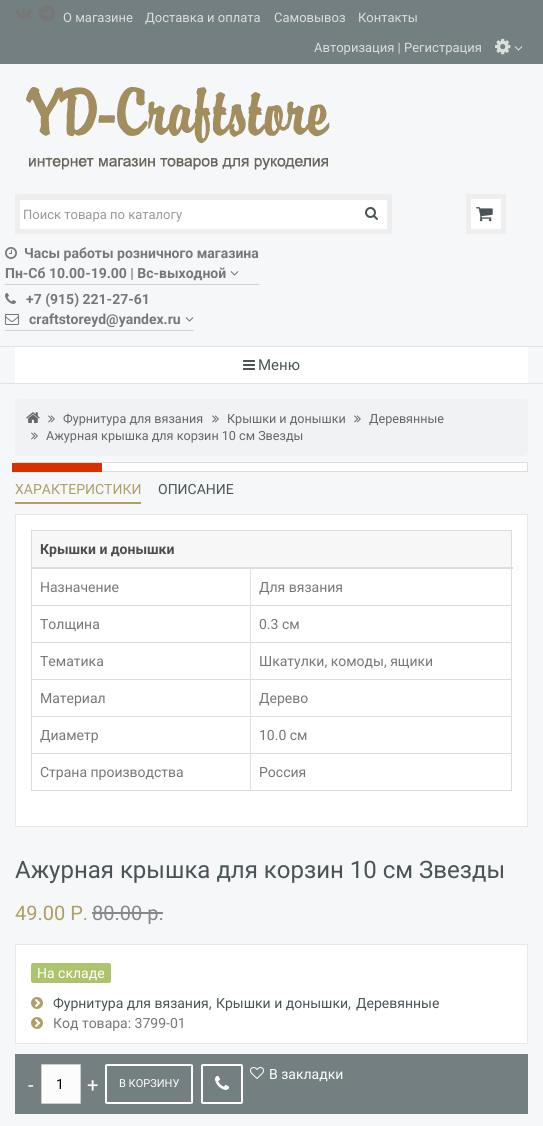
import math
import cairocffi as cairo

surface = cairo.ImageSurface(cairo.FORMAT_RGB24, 543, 1126)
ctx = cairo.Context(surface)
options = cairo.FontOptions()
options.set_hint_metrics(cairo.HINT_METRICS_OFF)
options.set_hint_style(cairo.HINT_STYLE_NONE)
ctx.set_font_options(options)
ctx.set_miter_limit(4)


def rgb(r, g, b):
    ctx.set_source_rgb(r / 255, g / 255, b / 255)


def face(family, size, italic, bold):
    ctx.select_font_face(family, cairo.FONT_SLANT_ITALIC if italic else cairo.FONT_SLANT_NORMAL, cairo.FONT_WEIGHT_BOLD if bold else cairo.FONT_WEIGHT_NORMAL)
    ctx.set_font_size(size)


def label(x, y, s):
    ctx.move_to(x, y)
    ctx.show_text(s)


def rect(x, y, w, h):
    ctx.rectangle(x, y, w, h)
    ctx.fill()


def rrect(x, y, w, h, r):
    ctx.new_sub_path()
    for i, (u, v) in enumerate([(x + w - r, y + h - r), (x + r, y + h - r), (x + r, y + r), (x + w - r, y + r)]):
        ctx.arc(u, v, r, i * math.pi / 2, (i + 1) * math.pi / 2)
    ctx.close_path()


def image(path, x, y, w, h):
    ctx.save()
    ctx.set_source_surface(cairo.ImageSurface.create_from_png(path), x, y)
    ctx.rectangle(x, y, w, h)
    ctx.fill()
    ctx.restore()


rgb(246, 247, 248)
ctx.paint()
rgb(115, 127, 129)
rect(0, 0, 543, 64)
image('image0.png', 15, 9, 17, 10)
image('image1.png', 39, 5, 16, 16)
face('Roboto', 13, 0, 0)
rgb(221, 221, 221)
label(63, 22, 'О магазине')
label(145, 22, 'Доставка и оплата')
label(274, 22, 'Самовывоз')
label(358, 22, 'Контакты')
label(314, 52, 'Авторизация | Регистрация')
image('image2.png', 495, 38, 16, 17)
image('image3.png', 514, 46, 9, 5)
image('image4.png', 26, 87, 304, 83)
rgb(255, 255, 255)
rect(20, 200, 367, 29)
rgb(236, 236, 236)
rect(20, 199, 367, 1)
ctx.rectangle(17.5, 196.5, 372, 35)
rgb(238, 238, 238)
ctx.set_line_width(5)
ctx.stroke()
rgb(153, 153, 153)
label(23, 219, 'Поиск товара по каталогу')
image('image5.png', 365, 207, 13, 13)
rgb(209, 210, 211)
rect(5, 284, 254, 1)
image('image6.png', 5, 247, 12, 12)
face('Roboto', 14, 0, 1)
rgb(119, 119, 119)
label(24, 258, 'Часы работы розничного магазина')
label(5, 278, 'Пн-Сб 10.00-19.00 | Вс-выходной')
image('image7.png', 230, 271, 9, 5)
rgb(209, 210, 211)
rect(5, 330, 189, 1)
image('image8.png', 5, 293, 11, 11)
rgb(119, 119, 119)
label(26, 304, '+7 (915) 221-27-61')
image('image9.png', 5, 314, 14, 11)
label(29, 324, 'craftstoreyd@yandex.ru')
image('image7.png', 185, 317, 9, 5)
rgb(255, 255, 255)
ctx.rectangle(468.5, 196.5, 35, 35)
ctx.fill_preserve()
rgb(238, 238, 238)
ctx.stroke()
image('image10.png', 476, 207, 17, 15)
rgb(226, 227, 228)
rect(0, 346, 543, 1)
rect(0, 383, 543, 1)
rgb(255, 255, 255)
rect(15, 347, 513, 36)
image('image11.png', 243, 360, 12, 10)
face('Roboto', 15, 0, 0)
rgb(74, 84, 86)
label(258, 370, 'Меню')
rgb(241, 242, 243)
rrect(15, 399, 513, 57, 4)
ctx.fill()
image('image12.png', 26, 412, 14, 11)
image('image13.png', 48, 415, 7, 8)
face('Roboto', 12.6, 0, 0)
rgb(102, 102, 102)
label(63, 423, 'Фурнитура для вязания')
image('image13.png', 212, 415, 7, 8)
label(227, 423, 'Крышки и донышки')
image('image13.png', 354, 415, 7, 8)
label(369, 423, 'Деревянные')
image('image13.png', 31, 432, 7, 8)
label(46, 440, 'Ажурная крышка для корзин 10 см Звезды')
rgb(255, 255, 255)
rect(102, 463, 425, 8)
ctx.rectangle(15.5, 462.5, 512, 9)
rgb(221, 221, 221)
ctx.set_line_width(1)
ctx.stroke()
rgb(218, 48, 0)
rect(12, 463, 90, 9)
rgb(176, 158, 102)
rect(15, 502, 126, 2)
face('Roboto', 14, 0, 0)
label(15, 494, 'ХАРАКТЕРИСТИКИ')
rgb(74, 84, 86)
label(158, 494, 'ОПИСАНИЕ')
rgb(255, 255, 255)
ctx.rectangle(15.5, 514.5, 512, 312)
ctx.fill_preserve()
rgb(232, 232, 232)
ctx.stroke()
rgb(221, 221, 221)
rect(31, 530, 481, 1)
rect(511, 530, 1, 261)
rect(31, 790, 481, 1)
rect(31, 530, 1, 261)
rgb(247, 247, 247)
rect(32, 531, 479, 36)
rgb(221, 221, 221)
rect(250, 605, 262, 1)
rect(250, 642, 262, 1)
rect(250, 679, 262, 1)
rect(250, 716, 262, 1)
rect(250, 753, 262, 1)
rect(250, 753, 1, 38)
rect(31, 753, 220, 1)
rect(250, 716, 1, 38)
rect(31, 716, 220, 1)
rect(250, 679, 1, 38)
rect(31, 679, 220, 1)
rect(250, 642, 1, 38)
rect(31, 642, 220, 1)
rect(250, 605, 1, 38)
rect(31, 605, 220, 1)
rect(250, 568, 1, 38)
rect(31, 567, 482, 2)
face('Roboto', 14, 0, 1)
rgb(77, 77, 77)
label(40, 554, 'Крышки и донышки')
face('Roboto', 14, 0, 0)
rgb(119, 119, 119)
label(40, 592, 'Назначение')
label(259, 592, 'Для вязания')
label(40, 629, 'Толщина')
label(259, 629, '0.3 см')
label(40, 666, 'Тематика')
label(259, 666, 'Шкатулки, комоды, ящики')
label(40, 703, 'Материал')
label(259, 703, 'Дерево')
label(40, 740, 'Диаметр')
label(259, 740, '10.0 см')
label(40, 777, 'Страна производства')
label(259, 777, 'Россия')
face('Roboto', 24, 0, 0)
rgb(74, 84, 86)
label(15, 878, 'Ажурная крышка для корзин 10 см Звезды')
face('Roboto', 20, 0, 0)
rgb(176, 158, 102)
label(15, 920, '49.00 Р.')
rgb(136, 136, 136)
label(92, 920, '80.00 р.')
rect(92, 912, 71, 2)
rgb(255, 255, 255)
ctx.rectangle(15.5, 944.5, 512, 99)
ctx.fill_preserve()
rgb(232, 232, 232)
ctx.stroke()
rgb(173, 195, 109)
rrect(31, 963, 80, 20, 2)
ctx.fill()
face('Roboto', 14, 0, 0)
rgb(255, 255, 255)
label(37, 978, 'На складе')
image('image14.png', 31, 997, 12, 12)
rgb(74, 84, 86)
label(53, 1008, 'Фурнитура для вязания,')
label(216, 1008, 'Крышки и донышки,')
label(356, 1008, 'Деревянные')
image('image14.png', 31, 1017, 12, 12)
rgb(119, 119, 119)
label(53, 1028, 'Код товара: 3799-01')
rgb(115, 127, 129)
rect(15, 1054, 513, 60)
rrect(202, 1065, 40, 38, 1)
rgb(255, 255, 255)
ctx.set_line_width(2)
ctx.stroke()
image('image15.png', 215, 1075, 15, 15)
image('image16.png', 250, 1067, 14, 12)
label(269, 1079, 'В закладки')
face('Roboto', 20, 0, 0)
label(28, 1092, '-')
rgb(252, 252, 252)
rrect(41.5, 1064.5, 39, 39, 0.5)
ctx.fill_preserve()
rgb(204, 204, 204)
ctx.set_line_width(1)
ctx.stroke()
face('Roboto', 14, 0, 0)
rgb(0, 0, 0)
label(56, 1089, '1')
face('Roboto', 20, 0, 0)
rgb(255, 255, 255)
label(87, 1092, '+')
rrect(106, 1065, 86, 38, 1)
ctx.set_line_width(2)
ctx.stroke()
face('Roboto', 11, 0, 0)
label(119, 1087, 'В КОРЗИНУ')
surface.write_to_png('render.png')
